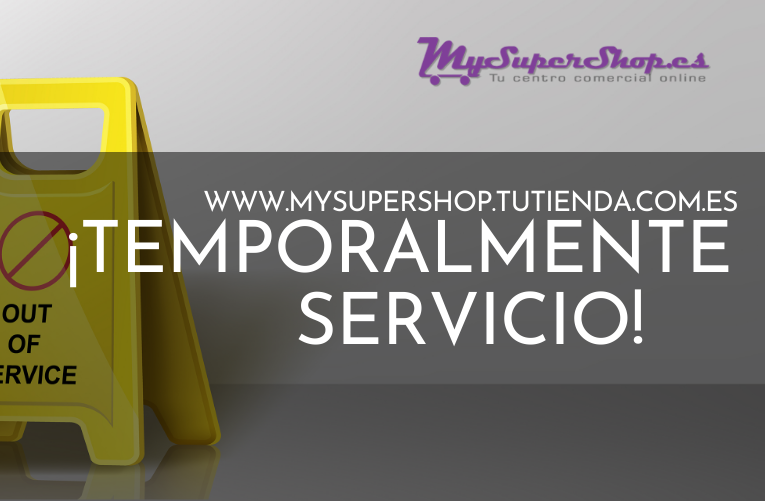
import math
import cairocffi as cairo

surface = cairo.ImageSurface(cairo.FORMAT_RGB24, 765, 501)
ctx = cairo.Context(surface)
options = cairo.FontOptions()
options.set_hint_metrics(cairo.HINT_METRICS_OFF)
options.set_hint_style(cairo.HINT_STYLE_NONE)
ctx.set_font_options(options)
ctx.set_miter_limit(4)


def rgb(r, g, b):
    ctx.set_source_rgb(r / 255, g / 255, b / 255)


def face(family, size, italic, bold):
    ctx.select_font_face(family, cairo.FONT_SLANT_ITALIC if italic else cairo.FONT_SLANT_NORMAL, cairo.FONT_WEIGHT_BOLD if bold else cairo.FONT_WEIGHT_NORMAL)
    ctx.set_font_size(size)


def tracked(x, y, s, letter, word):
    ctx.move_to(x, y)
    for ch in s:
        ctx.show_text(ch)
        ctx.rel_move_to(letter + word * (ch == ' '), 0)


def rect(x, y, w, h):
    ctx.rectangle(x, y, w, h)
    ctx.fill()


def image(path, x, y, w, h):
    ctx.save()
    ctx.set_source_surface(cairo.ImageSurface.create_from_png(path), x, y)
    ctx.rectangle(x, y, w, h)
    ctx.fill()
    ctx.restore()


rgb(255, 255, 255)
ctx.paint()
image('image0.png', 0, 0, 765, 501)
image('image1.png', 416, 37, 295, 50)
ctx.set_source_rgba(0, 0, 0, 0.5)
rect(0, 152, 765, 349)
face('Josefin Sans', 28, 0, 0)
rgb(255, 255, 255)
tracked(203, 211, 'WWW.MYSUPERSHOP.TUTIENDA.COM.ES', -1, 0)
face('Josefin Sans', 72, 0, 0)
tracked(66, 272, '¡TEMPORALMENTE', -1, 0)
tracked(295, 344, 'SERVICIO!', -1, 0)
surface.write_to_png('render.png')
